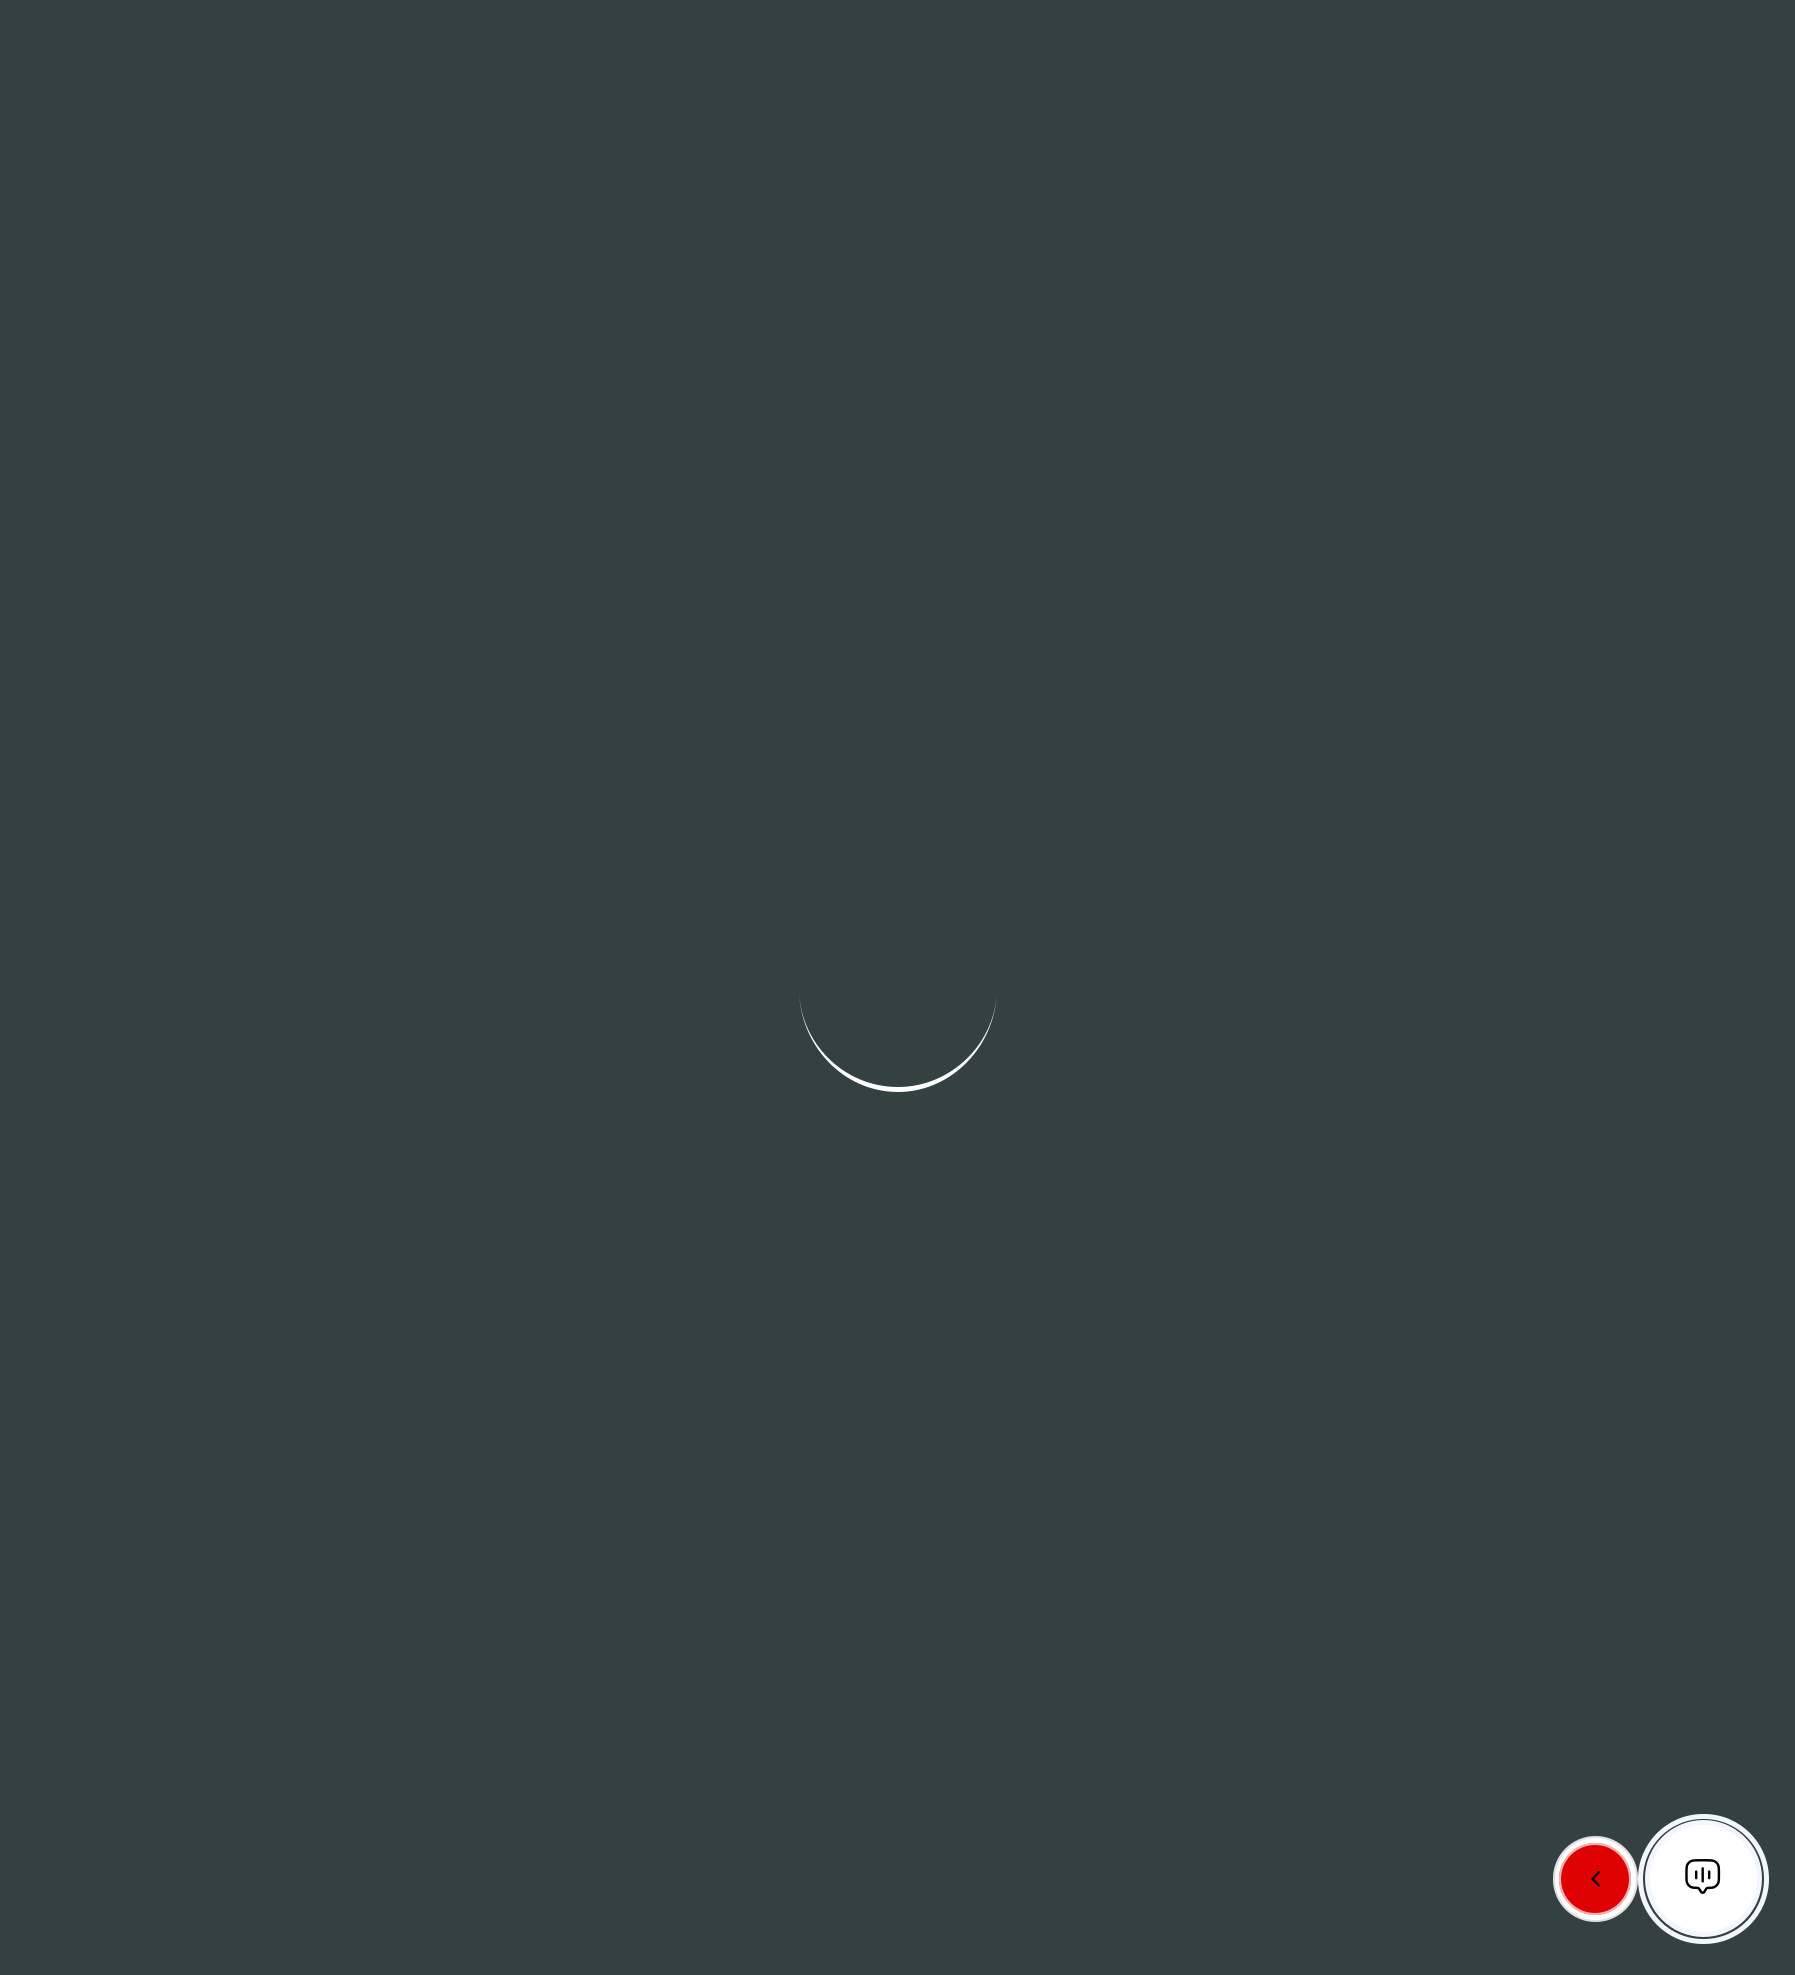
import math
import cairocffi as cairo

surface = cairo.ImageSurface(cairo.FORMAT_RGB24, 1795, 1975)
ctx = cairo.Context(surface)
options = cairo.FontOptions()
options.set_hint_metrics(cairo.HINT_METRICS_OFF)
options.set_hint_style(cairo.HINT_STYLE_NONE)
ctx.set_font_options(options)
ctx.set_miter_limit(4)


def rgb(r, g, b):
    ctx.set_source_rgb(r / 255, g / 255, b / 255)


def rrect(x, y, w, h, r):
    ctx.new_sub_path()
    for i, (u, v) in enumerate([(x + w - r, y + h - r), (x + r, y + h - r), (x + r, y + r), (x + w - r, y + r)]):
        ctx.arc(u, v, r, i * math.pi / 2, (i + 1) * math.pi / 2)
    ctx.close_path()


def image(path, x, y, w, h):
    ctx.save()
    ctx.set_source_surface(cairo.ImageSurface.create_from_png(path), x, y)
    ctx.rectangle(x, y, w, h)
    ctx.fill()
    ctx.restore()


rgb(53, 64, 65)
ctx.paint()
rgb(255, 255, 255)
ctx.new_path()
ctx.move_to(799, 988)
ctx.curve_to(799, 1042, 843, 1087, 898, 1087)
ctx.curve_to(952, 1087, 997, 1042, 997, 988)
ctx.curve_to(997, 1045, 952, 1092, 898, 1092)
ctx.curve_to(843, 1092, 799, 1045, 799, 988)
ctx.fill()
rrect(1553, 1836, 85, 86, 42.5)
ctx.fill()
rrect(1554, 1837, 83, 84, 41.5)
ctx.set_source_rgba(0.373, 0.373, 0.373, 0.2)
ctx.stroke()
rgb(222, 2, 2)
ctx.arc(1595, 1879, 36, 0, 2 * math.pi)
ctx.fill()
ctx.arc(1595, 1879, 35, 0, 2 * math.pi)
ctx.set_source_rgba(1, 1, 1, 0.7)
ctx.stroke()
ctx.new_path()
ctx.move_to(1599, 1885.5)
ctx.line_to(1592.5, 1879)
ctx.line_to(1599, 1872)
rgb(0, 0, 0)
ctx.set_line_width(2.2)
ctx.set_line_cap(cairo.LINE_CAP_ROUND)
ctx.set_line_join(cairo.LINE_JOIN_ROUND)
ctx.stroke()
rrect(1640.5, 1816.5, 126, 125, 62.5)
rgb(243, 246, 252)
ctx.set_line_width(5)
ctx.set_line_cap(cairo.LINE_CAP_BUTT)
ctx.set_line_join(cairo.LINE_JOIN_MITER)
ctx.stroke()
rgb(255, 255, 255)
ctx.arc(1703.5, 1878.5, 56, 0, 2 * math.pi)
ctx.fill_preserve()
rgb(243, 246, 252)
ctx.stroke()
image('image0.png', 1685, 1859, 36, 35)
surface.write_to_png('render.png')
